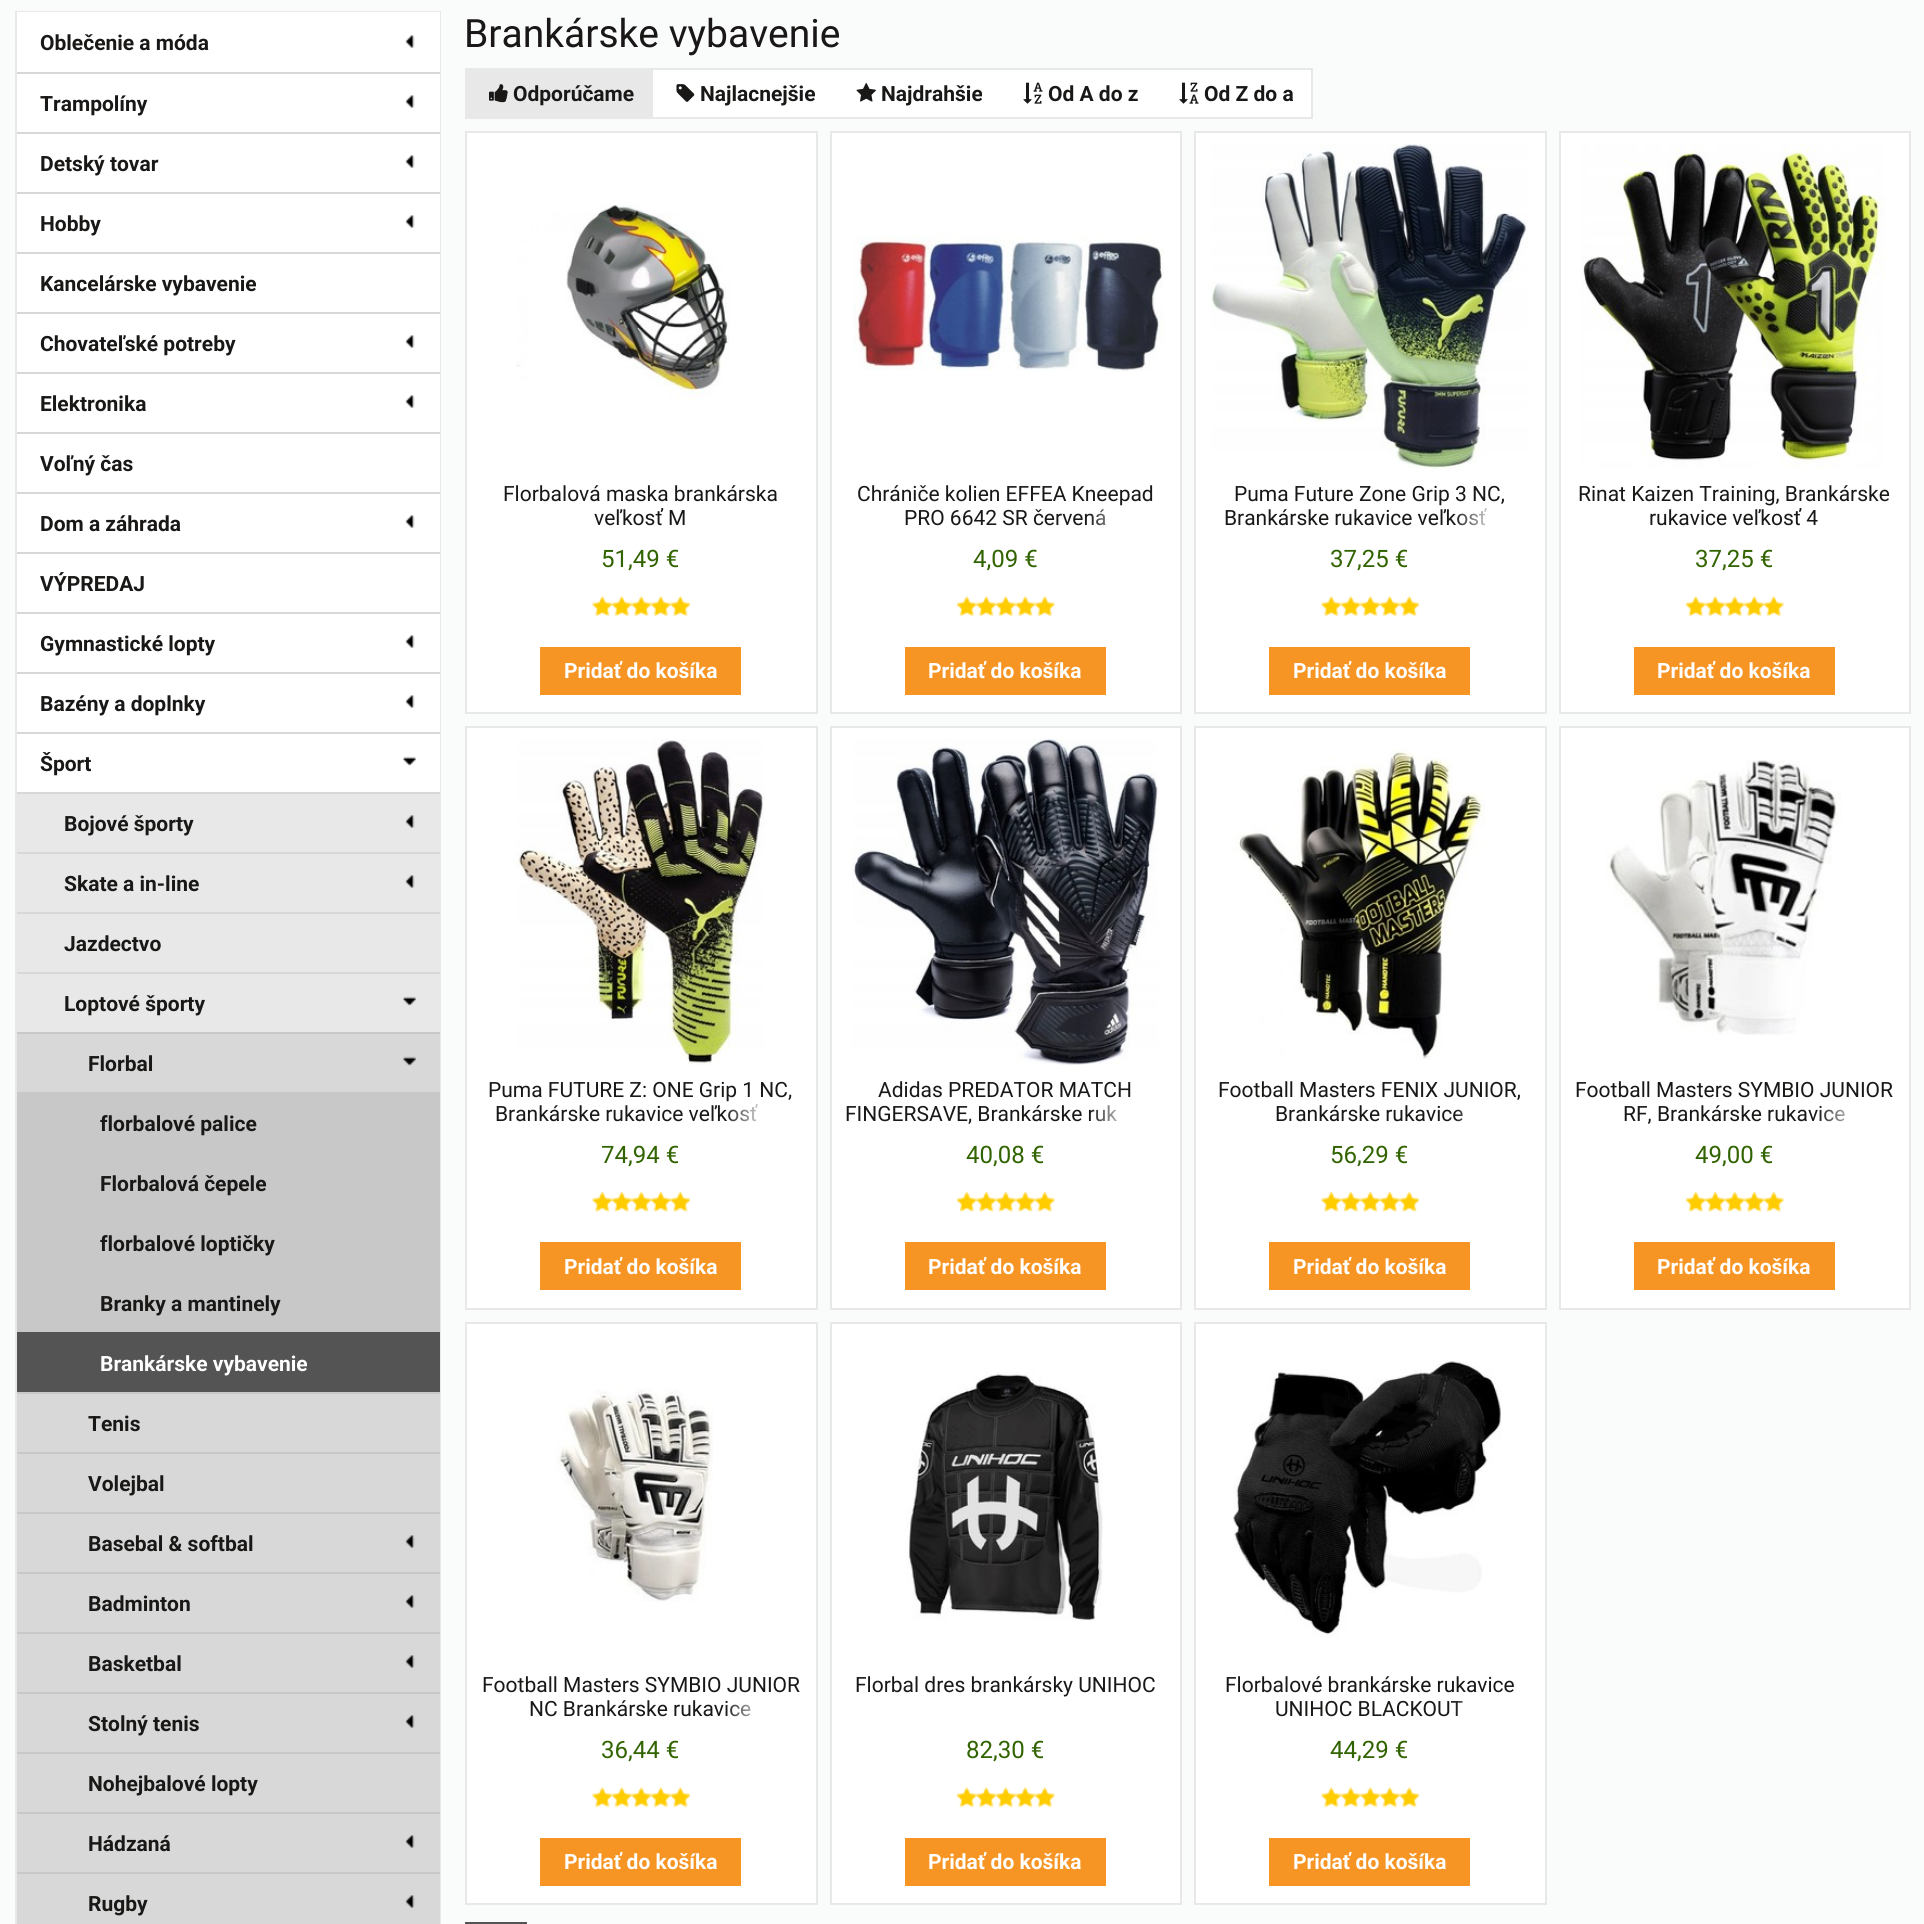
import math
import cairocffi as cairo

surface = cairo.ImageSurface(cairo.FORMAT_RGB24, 1924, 1924)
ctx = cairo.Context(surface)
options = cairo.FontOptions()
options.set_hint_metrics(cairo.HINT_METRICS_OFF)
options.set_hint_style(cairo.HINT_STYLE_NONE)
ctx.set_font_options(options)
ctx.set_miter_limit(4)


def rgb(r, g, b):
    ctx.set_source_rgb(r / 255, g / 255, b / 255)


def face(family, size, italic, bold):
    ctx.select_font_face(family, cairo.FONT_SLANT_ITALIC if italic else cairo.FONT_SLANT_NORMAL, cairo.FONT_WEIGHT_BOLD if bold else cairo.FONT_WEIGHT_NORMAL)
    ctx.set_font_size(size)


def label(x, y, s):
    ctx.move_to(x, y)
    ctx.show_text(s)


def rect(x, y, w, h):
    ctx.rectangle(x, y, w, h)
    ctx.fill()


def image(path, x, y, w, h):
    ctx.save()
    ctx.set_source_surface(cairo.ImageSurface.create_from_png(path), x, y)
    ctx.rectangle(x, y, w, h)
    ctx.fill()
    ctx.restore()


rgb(250, 251, 251)
ctx.paint()
ctx.rectangle(16, 12, 424, 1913)
rgb(232, 232, 232)
ctx.stroke()
rgb(255, 255, 255)
rect(17, 12, 423, 60)
face('Roboto', 21, 0, 1)
rgb(25, 24, 23)
label(40, 50, 'Oblečenie a móda')
image('image0.png', 405, 35, 10, 13)
rgb(255, 255, 255)
rect(17, 74, 423, 58)
rgb(216, 216, 216)
rect(17, 72, 423, 2)
rgb(25, 24, 23)
label(40, 111, 'Trampolíny')
image('image0.png', 405, 95, 10, 13)
rgb(255, 255, 255)
rect(17, 134, 423, 58)
rgb(216, 216, 216)
rect(17, 132, 423, 2)
rgb(25, 24, 23)
label(40, 171, 'Detský tovar')
image('image0.png', 405, 155, 10, 13)
rgb(255, 255, 255)
rect(17, 194, 423, 58)
rgb(216, 216, 216)
rect(17, 192, 423, 2)
rgb(25, 24, 23)
label(40, 231, 'Hobby')
image('image0.png', 405, 215, 10, 13)
rgb(255, 255, 255)
rect(17, 254, 423, 58)
rgb(216, 216, 216)
rect(17, 252, 423, 2)
rgb(25, 24, 23)
label(40, 291, 'Kancelárske vybavenie')
rgb(255, 255, 255)
rect(17, 314, 423, 58)
rgb(216, 216, 216)
rect(17, 312, 423, 2)
rgb(25, 24, 23)
label(40, 351, 'Chovateľské potreby')
image('image0.png', 405, 335, 10, 13)
rgb(255, 255, 255)
rect(17, 374, 423, 58)
rgb(216, 216, 216)
rect(17, 372, 423, 2)
rgb(25, 24, 23)
label(40, 411, 'Elektronika')
image('image0.png', 405, 395, 10, 13)
rgb(255, 255, 255)
rect(17, 434, 423, 58)
rgb(216, 216, 216)
rect(17, 432, 423, 2)
rgb(25, 24, 23)
label(40, 471, 'Voľný čas')
rgb(255, 255, 255)
rect(17, 494, 423, 58)
rgb(216, 216, 216)
rect(17, 492, 423, 2)
rgb(25, 24, 23)
label(40, 531, 'Dom a záhrada')
image('image0.png', 405, 515, 10, 13)
rgb(255, 255, 255)
rect(17, 554, 423, 58)
rgb(216, 216, 216)
rect(17, 552, 423, 2)
rgb(25, 24, 23)
label(40, 591, 'VÝPREDAJ')
rgb(255, 255, 255)
rect(17, 614, 423, 58)
rgb(216, 216, 216)
rect(17, 612, 423, 2)
rgb(25, 24, 23)
label(40, 651, 'Gymnastické lopty')
image('image0.png', 405, 635, 10, 13)
rgb(255, 255, 255)
rect(17, 674, 423, 58)
rgb(216, 216, 216)
rect(17, 672, 423, 2)
rgb(25, 24, 23)
label(40, 711, 'Bazény a doplnky')
image('image0.png', 405, 695, 10, 13)
rgb(255, 255, 255)
rect(17, 734, 423, 58)
rgb(216, 216, 216)
rect(17, 732, 423, 2)
rgb(25, 24, 23)
label(40, 771, 'Šport')
image('image1.png', 403, 756, 13, 10)
rgb(232, 232, 232)
rect(17, 794, 422, 58)
rgb(216, 216, 216)
rect(17, 792, 423, 2)
rgb(25, 24, 23)
label(64, 831, 'Bojové športy')
image('image2.png', 405, 815, 10, 13)
rgb(232, 232, 232)
rect(17, 854, 422, 58)
rgb(216, 216, 216)
rect(17, 852, 423, 2)
rgb(25, 24, 23)
label(64, 891, 'Skate a in-line')
image('image2.png', 405, 875, 10, 13)
rgb(232, 232, 232)
rect(17, 914, 422, 58)
rgb(216, 216, 216)
rect(17, 912, 423, 2)
rgb(25, 24, 23)
label(64, 951, 'Jazdectvo')
rgb(232, 232, 232)
rect(17, 974, 422, 58)
rgb(216, 216, 216)
rect(17, 972, 423, 2)
rgb(25, 24, 23)
label(64, 1011, 'Loptové športy')
image('image3.png', 403, 996, 13, 10)
rgb(216, 216, 216)
rect(17, 1034, 423, 58)
rgb(200, 200, 200)
rect(17, 1032, 423, 2)
rgb(25, 24, 23)
label(88, 1071, 'Florbal')
image('image4.png', 403, 1056, 13, 10)
rgb(200, 200, 200)
rect(17, 1092, 423, 240)
rgb(25, 24, 23)
label(100, 1131, 'florbalové palice')
label(100, 1191, 'Florbalová čepele')
label(100, 1251, 'florbalové loptičky')
label(100, 1311, 'Branky a mantinely')
rgb(84, 84, 84)
rect(17, 1332, 423, 60)
rgb(255, 255, 255)
label(100, 1371, 'Brankárske vybavenie')
rgb(216, 216, 216)
rect(17, 1394, 423, 58)
rgb(200, 200, 200)
rect(17, 1392, 423, 2)
rgb(25, 24, 23)
label(88, 1431, 'Tenis')
rgb(216, 216, 216)
rect(17, 1454, 423, 58)
rgb(200, 200, 200)
rect(17, 1452, 423, 2)
rgb(25, 24, 23)
label(88, 1491, 'Volejbal')
rgb(216, 216, 216)
rect(17, 1514, 423, 58)
rgb(200, 200, 200)
rect(17, 1512, 423, 2)
rgb(25, 24, 23)
label(88, 1551, 'Basebal & softbal')
image('image5.png', 405, 1535, 10, 13)
rgb(216, 216, 216)
rect(17, 1574, 423, 58)
rgb(200, 200, 200)
rect(17, 1572, 423, 2)
rgb(25, 24, 23)
label(88, 1611, 'Badminton')
image('image5.png', 405, 1595, 10, 13)
rgb(216, 216, 216)
rect(17, 1634, 423, 58)
rgb(200, 200, 200)
rect(17, 1632, 423, 2)
rgb(25, 24, 23)
label(88, 1671, 'Basketbal')
image('image5.png', 405, 1655, 10, 13)
rgb(216, 216, 216)
rect(17, 1694, 423, 58)
rgb(200, 200, 200)
rect(17, 1692, 423, 2)
rgb(25, 24, 23)
label(88, 1731, 'Stolný tenis')
image('image5.png', 405, 1715, 10, 13)
rgb(216, 216, 216)
rect(17, 1754, 423, 58)
rgb(200, 200, 200)
rect(17, 1752, 423, 2)
rgb(25, 24, 23)
label(88, 1791, 'Nohejbalové lopty')
rgb(216, 216, 216)
rect(17, 1814, 423, 58)
rgb(200, 200, 200)
rect(17, 1812, 423, 2)
rgb(25, 24, 23)
label(88, 1851, 'Hádzaná')
image('image5.png', 405, 1835, 10, 13)
rgb(216, 216, 216)
rect(17, 1874, 423, 50)
rgb(200, 200, 200)
rect(17, 1872, 423, 2)
rgb(25, 24, 23)
label(88, 1911, 'Rugby')
image('image5.png', 405, 1895, 10, 13)
face('Roboto', 39, 0, 0)
label(464, 47, 'Brankárske vybavenie')
rgb(255, 255, 255)
rect(653, 70, 658, 47)
ctx.rectangle(466, 69, 846, 49)
rgb(232, 232, 232)
ctx.stroke()
rect(467, 70, 186, 47)
image('image6.png', 489, 84, 19, 19)
face('Roboto', 21, 0, 1)
rgb(25, 24, 23)
label(513, 101, 'Odporúčame')
image('image7.png', 676, 84, 19, 18)
label(700, 101, 'Najlacnejšie')
image('image8.png', 856, 83, 20, 19)
label(881, 101, 'Najdrahšie')
image('image9.png', 1023, 82, 20, 22)
label(1048, 101, 'Od A do z')
image('image10.png', 1179, 82, 20, 22)
label(1204, 101, 'Od Z do a')
rgb(255, 255, 255)
ctx.rectangle(466, 132, 351, 581)
ctx.fill_preserve()
rgb(232, 232, 232)
ctx.stroke()
image('image11.png', 516, 204, 214, 196)
face('Roboto', 21, 0, 0)
rgb(25, 24, 23)
label(503, 501, 'Florbalová maska brankárska')
label(594, 525, 'veľkosť M')
face('Roboto', 24, 0, 0)
rgb(49, 100, 0)
label(601, 567, '51,49 €')
image('image12.png', 592, 596, 98, 21)
rgb(247, 149, 36)
rect(540, 647, 201, 48)
face('Roboto', 21, 0, 1)
rgb(255, 255, 255)
label(564, 678, 'Pridať do košíka')
ctx.rectangle(831, 132, 350, 581)
ctx.fill_preserve()
rgb(232, 232, 232)
ctx.stroke()
image('image13.png', 853, 234, 311, 137)
face('Roboto', 21, 0, 0)
rgb(25, 24, 23)
label(857, 501, 'Chrániče kolien EFFEA Kneepad')
label(904, 525, 'PRO 6642 SR červená')
gradient = cairo.LinearGradient(1089, 518, 1175, 518)
gradient.add_color_stop_rgba(0, 1, 1, 1, 0)
gradient.add_color_stop_rgba(0.5, 1, 1, 1, 1)
ctx.set_source(gradient)
rect(1090, 509, 15, 17)
face('Roboto', 24, 0, 0)
rgb(49, 100, 0)
label(973, 567, '4,09 €')
image('image14.png', 957, 596, 98, 21)
rgb(247, 149, 36)
rect(905, 647, 201, 48)
face('Roboto', 21, 0, 1)
rgb(255, 255, 255)
label(928, 678, 'Pridať do košíka')
ctx.rectangle(1195, 132, 351, 581)
ctx.fill_preserve()
rgb(232, 232, 232)
ctx.stroke()
image('image15.png', 1210, 143, 319, 326)
face('Roboto', 21, 0, 0)
rgb(25, 24, 23)
label(1234, 501, 'Puma Future Zone Grip 3 NC,')
label(1224, 525, 'Brankárske rukavice veľkosť')
gradient = cairo.LinearGradient(1454, 518, 1539, 518)
gradient.add_color_stop_rgba(0, 1, 1, 1, 0)
gradient.add_color_stop_rgba(0.5, 1, 1, 1, 1)
ctx.set_source(gradient)
rect(1455, 508, 32, 18)
face('Roboto', 24, 0, 0)
rgb(49, 100, 0)
label(1330, 567, '37,25 €')
image('image12.png', 1321, 596, 98, 21)
rgb(247, 149, 36)
rect(1269, 647, 201, 48)
face('Roboto', 21, 0, 1)
rgb(255, 255, 255)
label(1293, 678, 'Pridať do košíka')
ctx.rectangle(1560, 132, 350, 581)
ctx.fill_preserve()
rgb(232, 232, 232)
ctx.stroke()
image('image16.png', 1581, 143, 304, 326)
face('Roboto', 21, 0, 0)
rgb(25, 24, 23)
label(1578, 501, 'Rinat Kaizen Training, Brankárske')
label(1649, 525, 'rukavice veľkosť 4')
face('Roboto', 24, 0, 0)
rgb(49, 100, 0)
label(1695, 567, '37,25 €')
image('image14.png', 1686, 596, 98, 21)
rgb(247, 149, 36)
rect(1634, 647, 201, 48)
face('Roboto', 21, 0, 1)
rgb(255, 255, 255)
label(1657, 678, 'Pridať do košíka')
ctx.rectangle(466, 727, 351, 582)
ctx.fill_preserve()
rgb(232, 232, 232)
ctx.stroke()
image('image17.png', 513, 739, 252, 326)
face('Roboto', 21, 0, 0)
rgb(25, 24, 23)
label(488, 1097, 'Puma FUTURE Z: ONE Grip 1 NC,')
label(495, 1121, 'Brankárske rukavice veľkosť')
gradient = cairo.LinearGradient(725, 1113, 810, 1113)
gradient.add_color_stop_rgba(0, 1, 1, 1, 0)
gradient.add_color_stop_rgba(0.5, 1, 1, 1, 1)
ctx.set_source(gradient)
rect(726, 1101, 32, 21)
face('Roboto', 24, 0, 0)
rgb(49, 100, 0)
label(601, 1163, '74,94 €')
image('image18.png', 592, 1192, 98, 20)
rgb(247, 149, 36)
rect(540, 1242, 201, 48)
face('Roboto', 21, 0, 1)
rgb(255, 255, 255)
label(564, 1274, 'Pridať do košíka')
ctx.rectangle(831, 727, 350, 582)
ctx.fill_preserve()
rgb(232, 232, 232)
ctx.stroke()
image('image19.png', 851, 739, 308, 326)
face('Roboto', 21, 0, 0)
rgb(25, 24, 23)
label(878, 1097, 'Adidas PREDATOR MATCH')
label(845, 1121, 'FINGERSAVE, Brankárske ruk')
gradient = cairo.LinearGradient(1089, 1113, 1175, 1113)
gradient.add_color_stop_rgba(0, 1, 1, 1, 0)
gradient.add_color_stop_rgba(0.5, 1, 1, 1, 1)
ctx.set_source(gradient)
rect(1090, 1105, 27, 17)
face('Roboto', 24, 0, 0)
rgb(49, 100, 0)
label(966, 1163, '40,08 €')
image('image20.png', 957, 1192, 98, 20)
rgb(247, 149, 36)
rect(905, 1242, 201, 48)
face('Roboto', 21, 0, 1)
rgb(255, 255, 255)
label(928, 1274, 'Pridať do košíka')
ctx.rectangle(1195, 727, 351, 582)
ctx.fill_preserve()
rgb(232, 232, 232)
ctx.stroke()
image('image21.png', 1234, 749, 252, 311)
face('Roboto', 21, 0, 0)
rgb(25, 24, 23)
label(1218, 1097, 'Football Masters FENIX JUNIOR,')
label(1275, 1121, 'Brankárske rukavice')
gradient = cairo.LinearGradient(1454, 1113, 1539, 1113)
gradient.add_color_stop_rgba(0, 1, 1, 1, 0)
gradient.add_color_stop_rgba(0.5, 1, 1, 1, 1)
ctx.set_source(gradient)
rect(1455, 1109, 8, 13)
face('Roboto', 24, 0, 0)
rgb(49, 100, 0)
label(1330, 1163, '56,29 €')
image('image18.png', 1321, 1192, 98, 20)
rgb(247, 149, 36)
rect(1269, 1242, 201, 48)
face('Roboto', 21, 0, 1)
rgb(255, 255, 255)
label(1293, 1274, 'Pridať do košíka')
ctx.rectangle(1560, 727, 350, 582)
ctx.fill_preserve()
rgb(232, 232, 232)
ctx.stroke()
image('image22.png', 1606, 760, 235, 275)
face('Roboto', 21, 0, 0)
rgb(25, 24, 23)
label(1575, 1097, 'Football Masters SYMBIO JUNIOR')
label(1623, 1121, 'RF, Brankárske rukavice')
gradient = cairo.LinearGradient(1818, 1113, 1904, 1113)
gradient.add_color_stop_rgba(0, 1, 1, 1, 0)
gradient.add_color_stop_rgba(0.5, 1, 1, 1, 1)
ctx.set_source(gradient)
rect(1819, 1106, 26, 16)
face('Roboto', 24, 0, 0)
rgb(49, 100, 0)
label(1695, 1163, '49,00 €')
image('image20.png', 1686, 1192, 98, 20)
rgb(247, 149, 36)
rect(1634, 1242, 201, 48)
face('Roboto', 21, 0, 1)
rgb(255, 255, 255)
label(1657, 1274, 'Pridať do košíka')
ctx.rectangle(466, 1323, 351, 581)
ctx.fill_preserve()
rgb(232, 232, 232)
ctx.stroke()
image('image23.png', 557, 1388, 156, 214)
face('Roboto', 21, 0, 0)
rgb(25, 24, 23)
label(482, 1692, 'Football Masters SYMBIO JUNIOR')
label(529, 1716, 'NC Brankárske rukavice')
gradient = cairo.LinearGradient(725, 1709, 810, 1709)
gradient.add_color_stop_rgba(0, 1, 1, 1, 0)
gradient.add_color_stop_rgba(0.5, 1, 1, 1, 1)
ctx.set_source(gradient)
rect(726, 1701, 25, 16)
face('Roboto', 24, 0, 0)
rgb(49, 100, 0)
label(601, 1758, '36,44 €')
image('image12.png', 592, 1787, 98, 21)
rgb(247, 149, 36)
rect(540, 1838, 201, 48)
face('Roboto', 21, 0, 1)
rgb(255, 255, 255)
label(564, 1869, 'Pridať do košíka')
ctx.rectangle(831, 1323, 350, 581)
ctx.fill_preserve()
rgb(232, 232, 232)
ctx.stroke()
image('image24.png', 905, 1372, 198, 249)
face('Roboto', 21, 0, 0)
rgb(25, 24, 23)
label(855, 1692, 'Florbal dres brankársky UNIHOC')
face('Roboto', 24, 0, 0)
rgb(49, 100, 0)
label(966, 1758, '82,30 €')
image('image14.png', 957, 1787, 98, 21)
rgb(247, 149, 36)
rect(905, 1838, 201, 48)
face('Roboto', 21, 0, 1)
rgb(255, 255, 255)
label(928, 1869, 'Pridať do košíka')
ctx.rectangle(1195, 1323, 351, 581)
ctx.fill_preserve()
rgb(232, 232, 232)
ctx.stroke()
image('image25.png', 1233, 1361, 268, 276)
face('Roboto', 21, 0, 0)
rgb(25, 24, 23)
label(1225, 1692, 'Florbalové brankárske rukavice')
label(1275, 1716, 'UNIHOC BLACKOUT')
gradient = cairo.LinearGradient(1454, 1709, 1539, 1709)
gradient.add_color_stop_rgba(0, 1, 1, 1, 0)
gradient.add_color_stop_rgba(0.5, 1, 1, 1, 1)
ctx.set_source(gradient)
rect(1455, 1701, 9, 15)
face('Roboto', 24, 0, 0)
rgb(49, 100, 0)
label(1330, 1758, '44,29 €')
image('image12.png', 1321, 1787, 98, 21)
rgb(247, 149, 36)
rect(1269, 1838, 201, 48)
face('Roboto', 21, 0, 1)
rgb(255, 255, 255)
label(1293, 1869, 'Pridať do košíka')
rgb(84, 84, 84)
rect(465, 1922, 62, 2)
surface.write_to_png('render.png')
